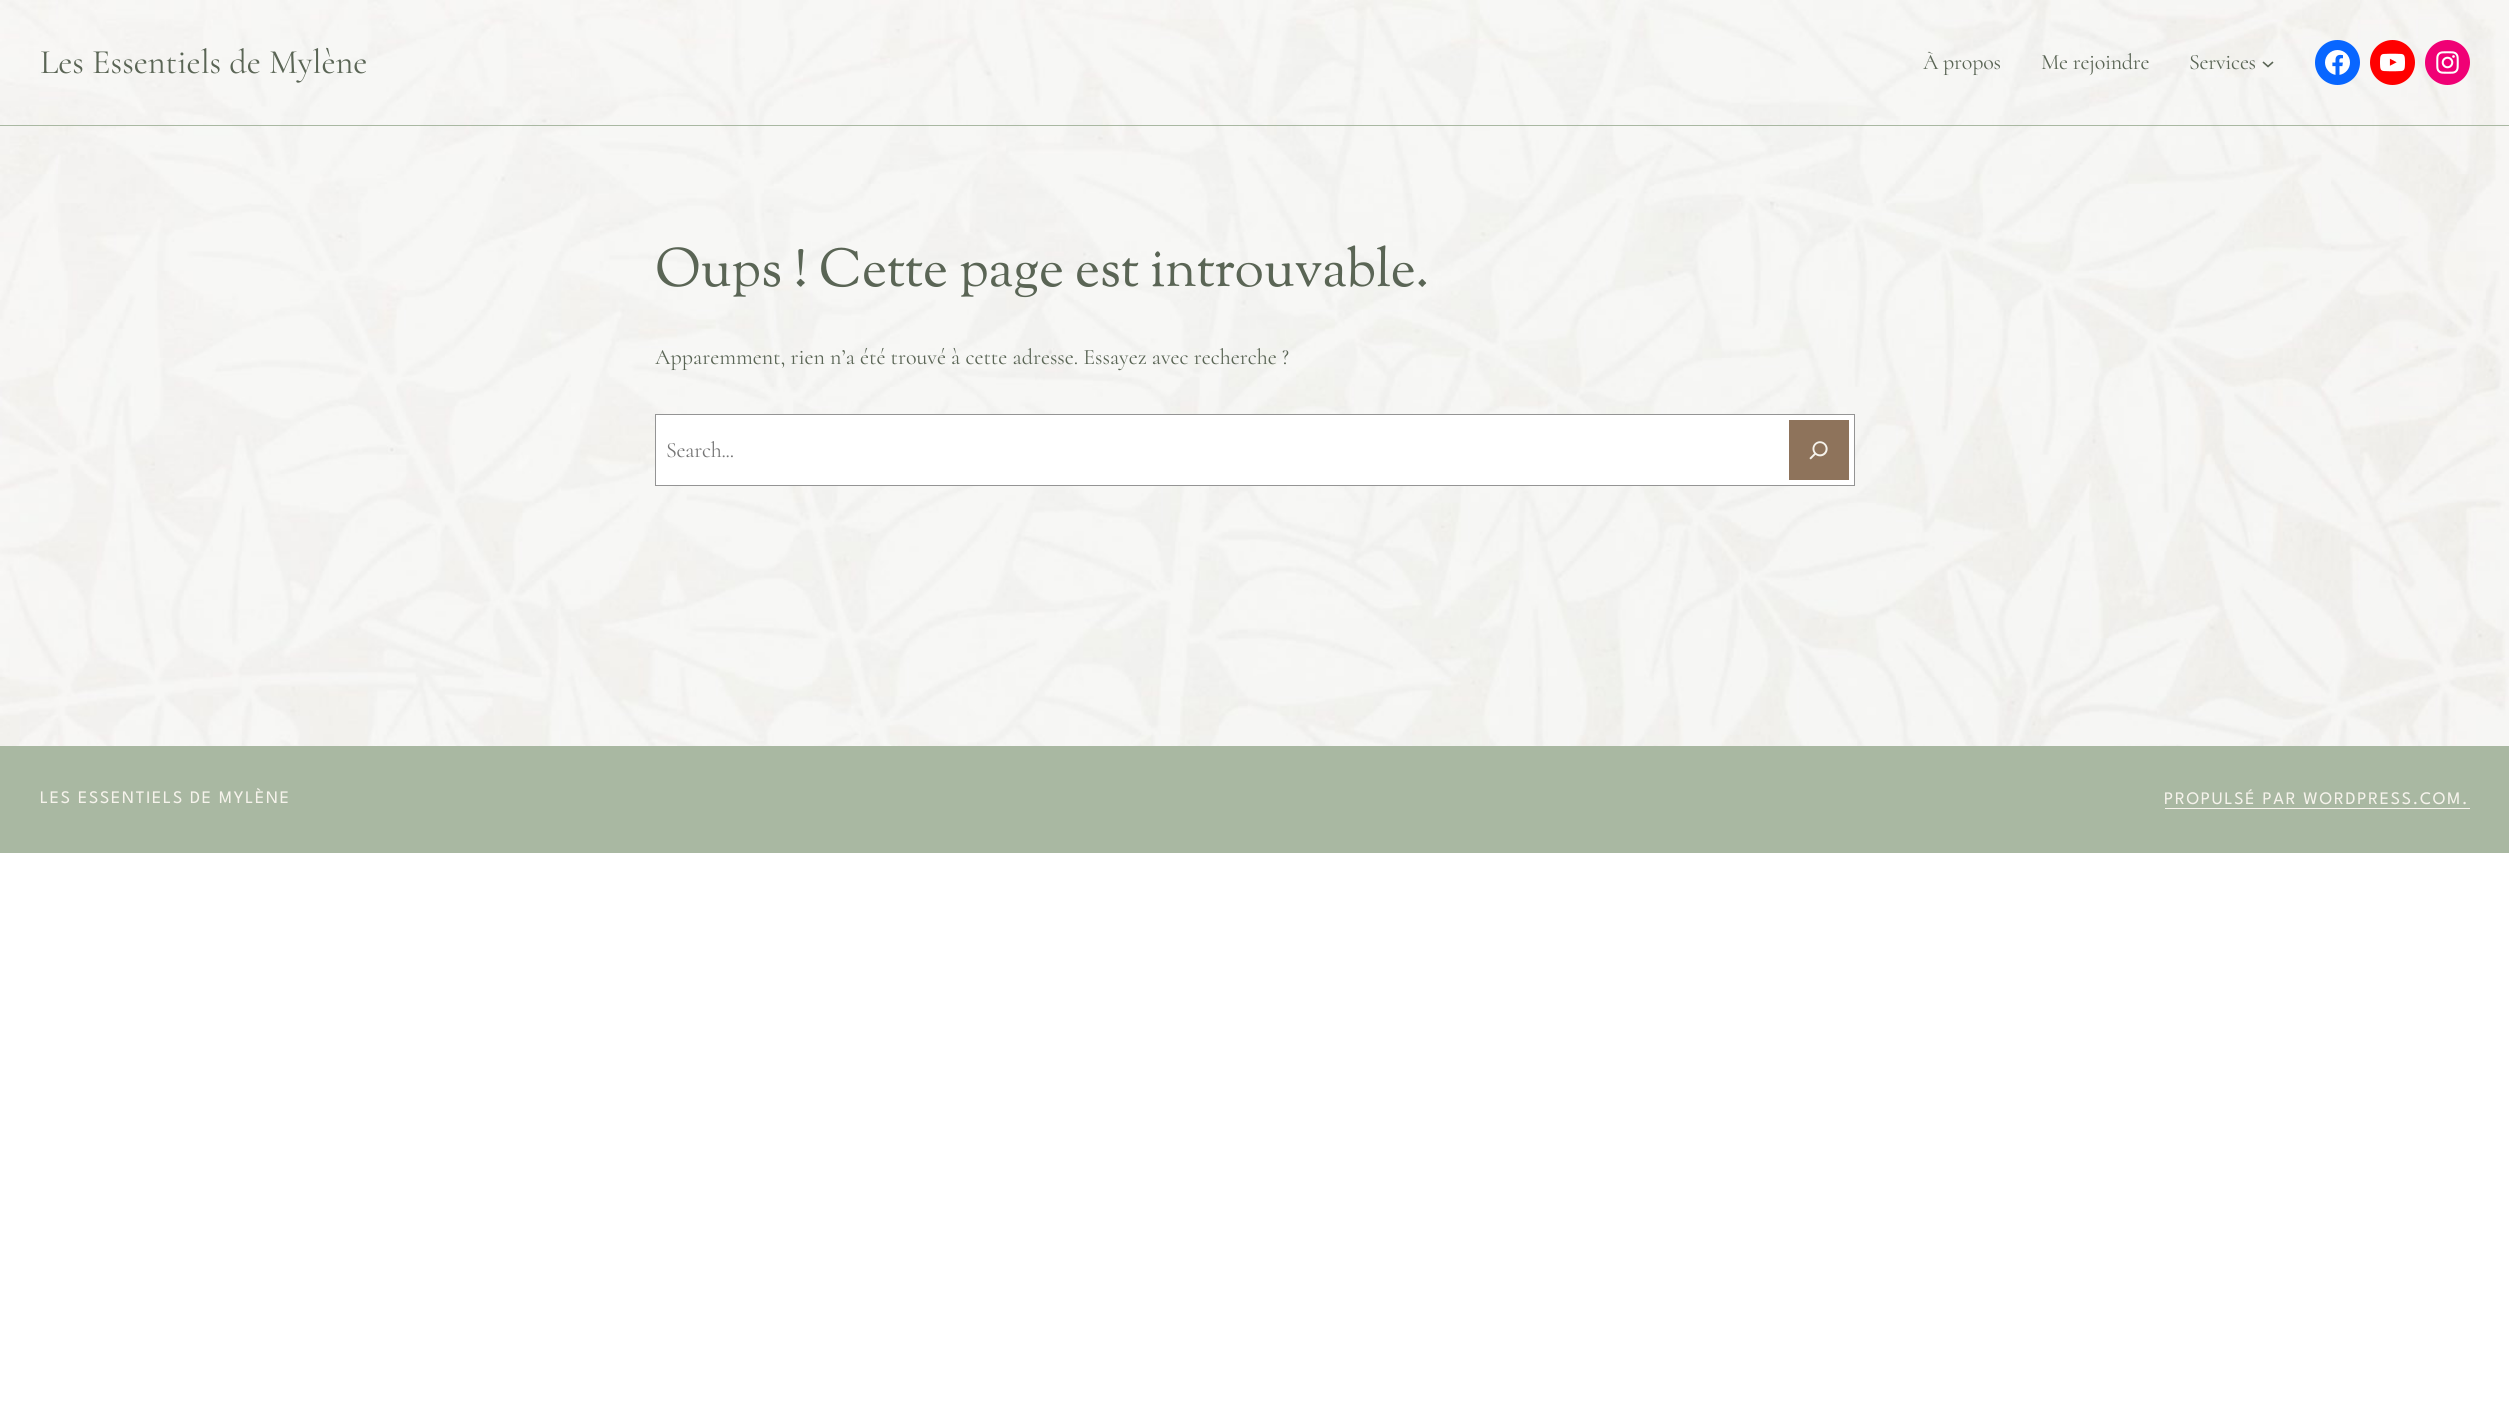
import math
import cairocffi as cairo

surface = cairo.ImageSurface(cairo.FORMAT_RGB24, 2509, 1420)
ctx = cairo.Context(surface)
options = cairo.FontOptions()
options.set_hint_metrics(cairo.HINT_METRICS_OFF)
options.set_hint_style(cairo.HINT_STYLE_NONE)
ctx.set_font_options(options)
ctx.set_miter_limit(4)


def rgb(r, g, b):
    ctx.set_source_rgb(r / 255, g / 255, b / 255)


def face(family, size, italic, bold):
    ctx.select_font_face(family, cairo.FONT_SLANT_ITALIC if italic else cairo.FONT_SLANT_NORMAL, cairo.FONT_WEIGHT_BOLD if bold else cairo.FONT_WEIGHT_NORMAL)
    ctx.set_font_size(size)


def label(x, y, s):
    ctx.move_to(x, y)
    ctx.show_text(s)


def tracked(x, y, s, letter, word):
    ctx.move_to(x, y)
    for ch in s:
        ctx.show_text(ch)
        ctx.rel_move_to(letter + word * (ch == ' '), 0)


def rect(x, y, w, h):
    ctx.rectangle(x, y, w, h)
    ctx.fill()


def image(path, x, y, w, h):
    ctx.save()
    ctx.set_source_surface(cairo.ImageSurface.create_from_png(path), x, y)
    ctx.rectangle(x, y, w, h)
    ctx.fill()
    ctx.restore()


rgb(255, 255, 255)
ctx.paint()
image('image0.png', 0, 0, 2509, 746)
rgb(169, 184, 162)
rect(0, 125, 2509, 1)
face('Cormorant', 34.4, 0, 0)
rgb(90, 101, 85)
label(40, 73, 'Les Essentiels de Mylène')
face('Cormorant', 22, 0, 0)
tracked(1923, 69, 'À propos', -0.25, 0)
tracked(2041, 69, 'Me rejoindre', -0.25, 0)
tracked(2189, 69, 'Services', -0.25, 0)
ctx.new_path()
ctx.move_to(2263, 62)
ctx.line_to(2268, 66.5)
ctx.line_to(2273, 62)
ctx.set_line_width(1.6)
ctx.stroke()
rgb(8, 102, 255)
ctx.arc(2337.5, 62.5, 22.5, 0, 2 * math.pi)
ctx.fill()
image('image1.png', 2325, 50, 25, 25)
rgb(255, 0, 0)
ctx.arc(2392.5, 62.5, 22.5, 0, 2 * math.pi)
ctx.fill()
image('image2.png', 2380, 53, 25, 19)
rgb(240, 0, 117)
ctx.arc(2447.5, 62.5, 22.5, 0, 2 * math.pi)
ctx.fill()
image('image3.png', 2436, 51, 23, 23)
face('Sorts Mill Goudy', 53.75, 0, 0)
rgb(90, 101, 85)
tracked(655, 286, 'Oups ! Cette page est introuvable.', -0.25, 0)
face('Cormorant', 22, 0, 0)
label(655, 364, 'Apparemment, rien n’a été trouvé à cette adresse. Essayez avec recherche ?')
rgb(255, 255, 255)
ctx.rectangle(655.5, 414.5, 1199, 71)
ctx.fill_preserve()
rgb(148, 148, 148)
ctx.set_line_width(1)
ctx.stroke()
rgb(117, 117, 117)
tracked(666, 457, 'Search...', -0.25, 0)
rgb(142, 115, 91)
rect(1789, 420, 60, 60)
image('image4.png', 1809, 441, 19, 19)
rgb(169, 184, 162)
rect(0, 746, 2509, 107)
face('League Spartan', 17.6, 0, 0)
rgb(246, 243, 236)
tracked(40, 803, 'LES ESSENTIELS DE MYLÈNE', 1.75, 0)
tracked(2164, 804, 'PROPULSÉ PAR WORDPRESS.COM.', 1.75, 0)
rect(2165, 808, 305, 1)
surface.write_to_png('render.png')
